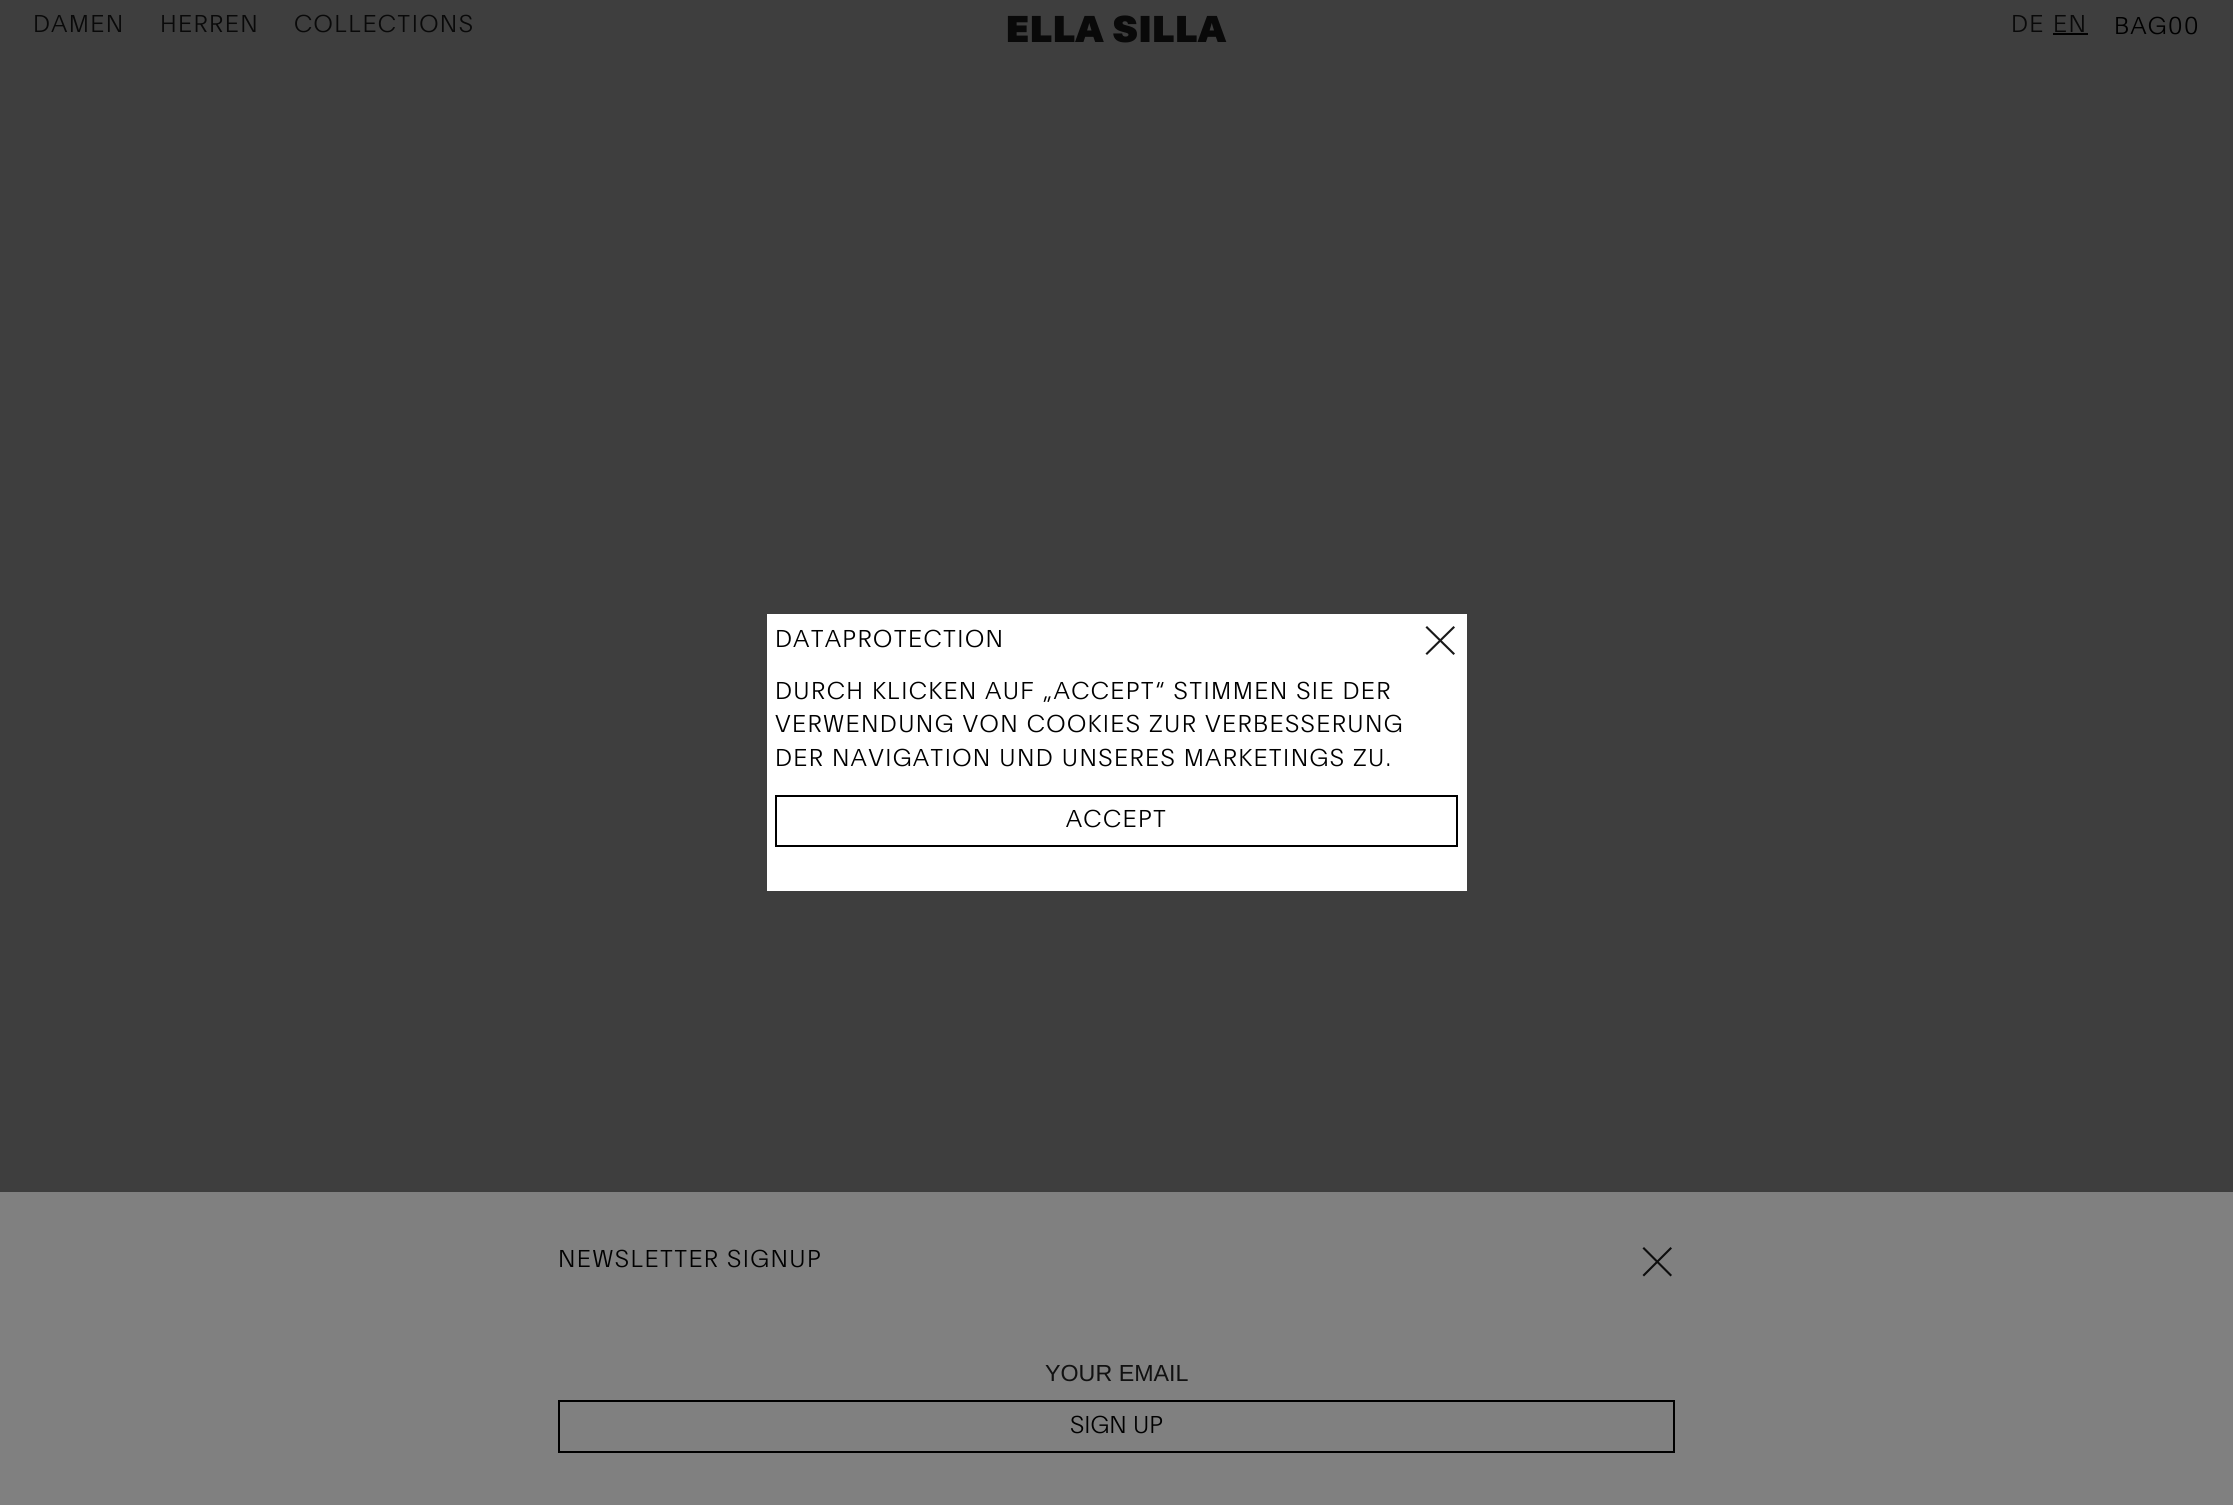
import math
import cairocffi as cairo

surface = cairo.ImageSurface(cairo.FORMAT_RGB24, 2233, 1505)
ctx = cairo.Context(surface)
options = cairo.FontOptions()
options.set_hint_metrics(cairo.HINT_METRICS_OFF)
options.set_hint_style(cairo.HINT_STYLE_NONE)
ctx.set_font_options(options)
ctx.set_miter_limit(4)


def rgb(r, g, b):
    ctx.set_source_rgb(r / 255, g / 255, b / 255)


def face(family, size, italic, bold):
    ctx.select_font_face(family, cairo.FONT_SLANT_ITALIC if italic else cairo.FONT_SLANT_NORMAL, cairo.FONT_WEIGHT_BOLD if bold else cairo.FONT_WEIGHT_NORMAL)
    ctx.set_font_size(size)


def label(x, y, s):
    ctx.move_to(x, y)
    ctx.show_text(s)


def tracked(x, y, s, letter, word):
    ctx.move_to(x, y)
    for ch in s:
        ctx.show_text(ch)
        ctx.rel_move_to(letter + word * (ch == ' '), 0)


def rect(x, y, w, h):
    ctx.rectangle(x, y, w, h)
    ctx.fill()


rgb(62, 62, 62)
ctx.paint()
face('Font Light', 23.8, 0, 0)
rgb(9, 9, 9)
tracked(33, 32, 'DAMEN', 1.4, 0)
tracked(160, 32, 'HERREN', 1.4, 0)
tracked(294, 32, 'COLLECTIONS', 1.4, 0)
face('Font ExtraBold', 36.5, 0, 0)
tracked(1006, 42, 'ELLA SILLA', 1.1, 0)
face('Font Light', 23.8, 0, 0)
tracked(2011, 32, 'DE', 1.4, 0)
tracked(2053, 32, 'EN', 1.4, 0)
rgb(0, 0, 0)
rect(2053, 33, 35, 2)
tracked(2114, 34, 'BAG00', 1.4, 0)
rgb(255, 255, 255)
rect(767, 614, 700, 277)
rgb(0, 0, 0)
tracked(775, 647, 'DATAPROTECTION', 1.4, 0)
rgb(25, 25, 25)
ctx.new_path()
ctx.move_to(1425.5, 653.5)
ctx.line_to(1453.5, 626)
ctx.line_to(1455, 627.5)
ctx.line_to(1427, 655)
ctx.close_path()
ctx.fill()
ctx.new_path()
ctx.move_to(1453.5, 655)
ctx.line_to(1425.5, 627.5)
ctx.line_to(1427, 626)
ctx.line_to(1455, 653.5)
ctx.close_path()
ctx.fill()
rgb(0, 0, 0)
tracked(775, 699, 'DURCH KLICKEN AUF „ACCEPT“ STIMMEN SIE DER', 1.4, 0)
tracked(775, 732, 'VERWENDUNG VON COOKIES ZUR VERBESSERUNG', 1.4, 0)
tracked(775, 766, 'DER NAVIGATION UND UNSERES MARKETINGS ZU.', 1.4, 0)
ctx.rectangle(776, 796, 681, 50)
ctx.stroke()
tracked(1066, 827, 'ACCEPT', 1.4, 0)
rgb(128, 128, 128)
rect(0, 1192, 2233, 313)
rgb(0, 0, 0)
tracked(558, 1267, 'NEWSLETTER SIGNUP', 1.4, 0)
rgb(13, 13, 13)
ctx.new_path()
ctx.move_to(1642.5, 1275)
ctx.line_to(1670.5, 1247)
ctx.line_to(1672, 1248.5)
ctx.line_to(1644, 1276.5)
ctx.close_path()
ctx.fill()
ctx.new_path()
ctx.move_to(1670.5, 1276.5)
ctx.line_to(1642.5, 1248.5)
ctx.line_to(1644, 1247)
ctx.line_to(1672, 1275)
ctx.close_path()
ctx.fill()
face('Liberation Sans', 23.25, 0, 0)
rgb(17, 17, 17)
label(1045, 1381, 'YOUR EMAIL')
ctx.rectangle(559, 1401, 1115, 51)
rgb(0, 0, 0)
ctx.stroke()
face('Font Light', 23.8, 0, 0)
label(1070, 1433, 'SIGN UP')
surface.write_to_png('render.png')
